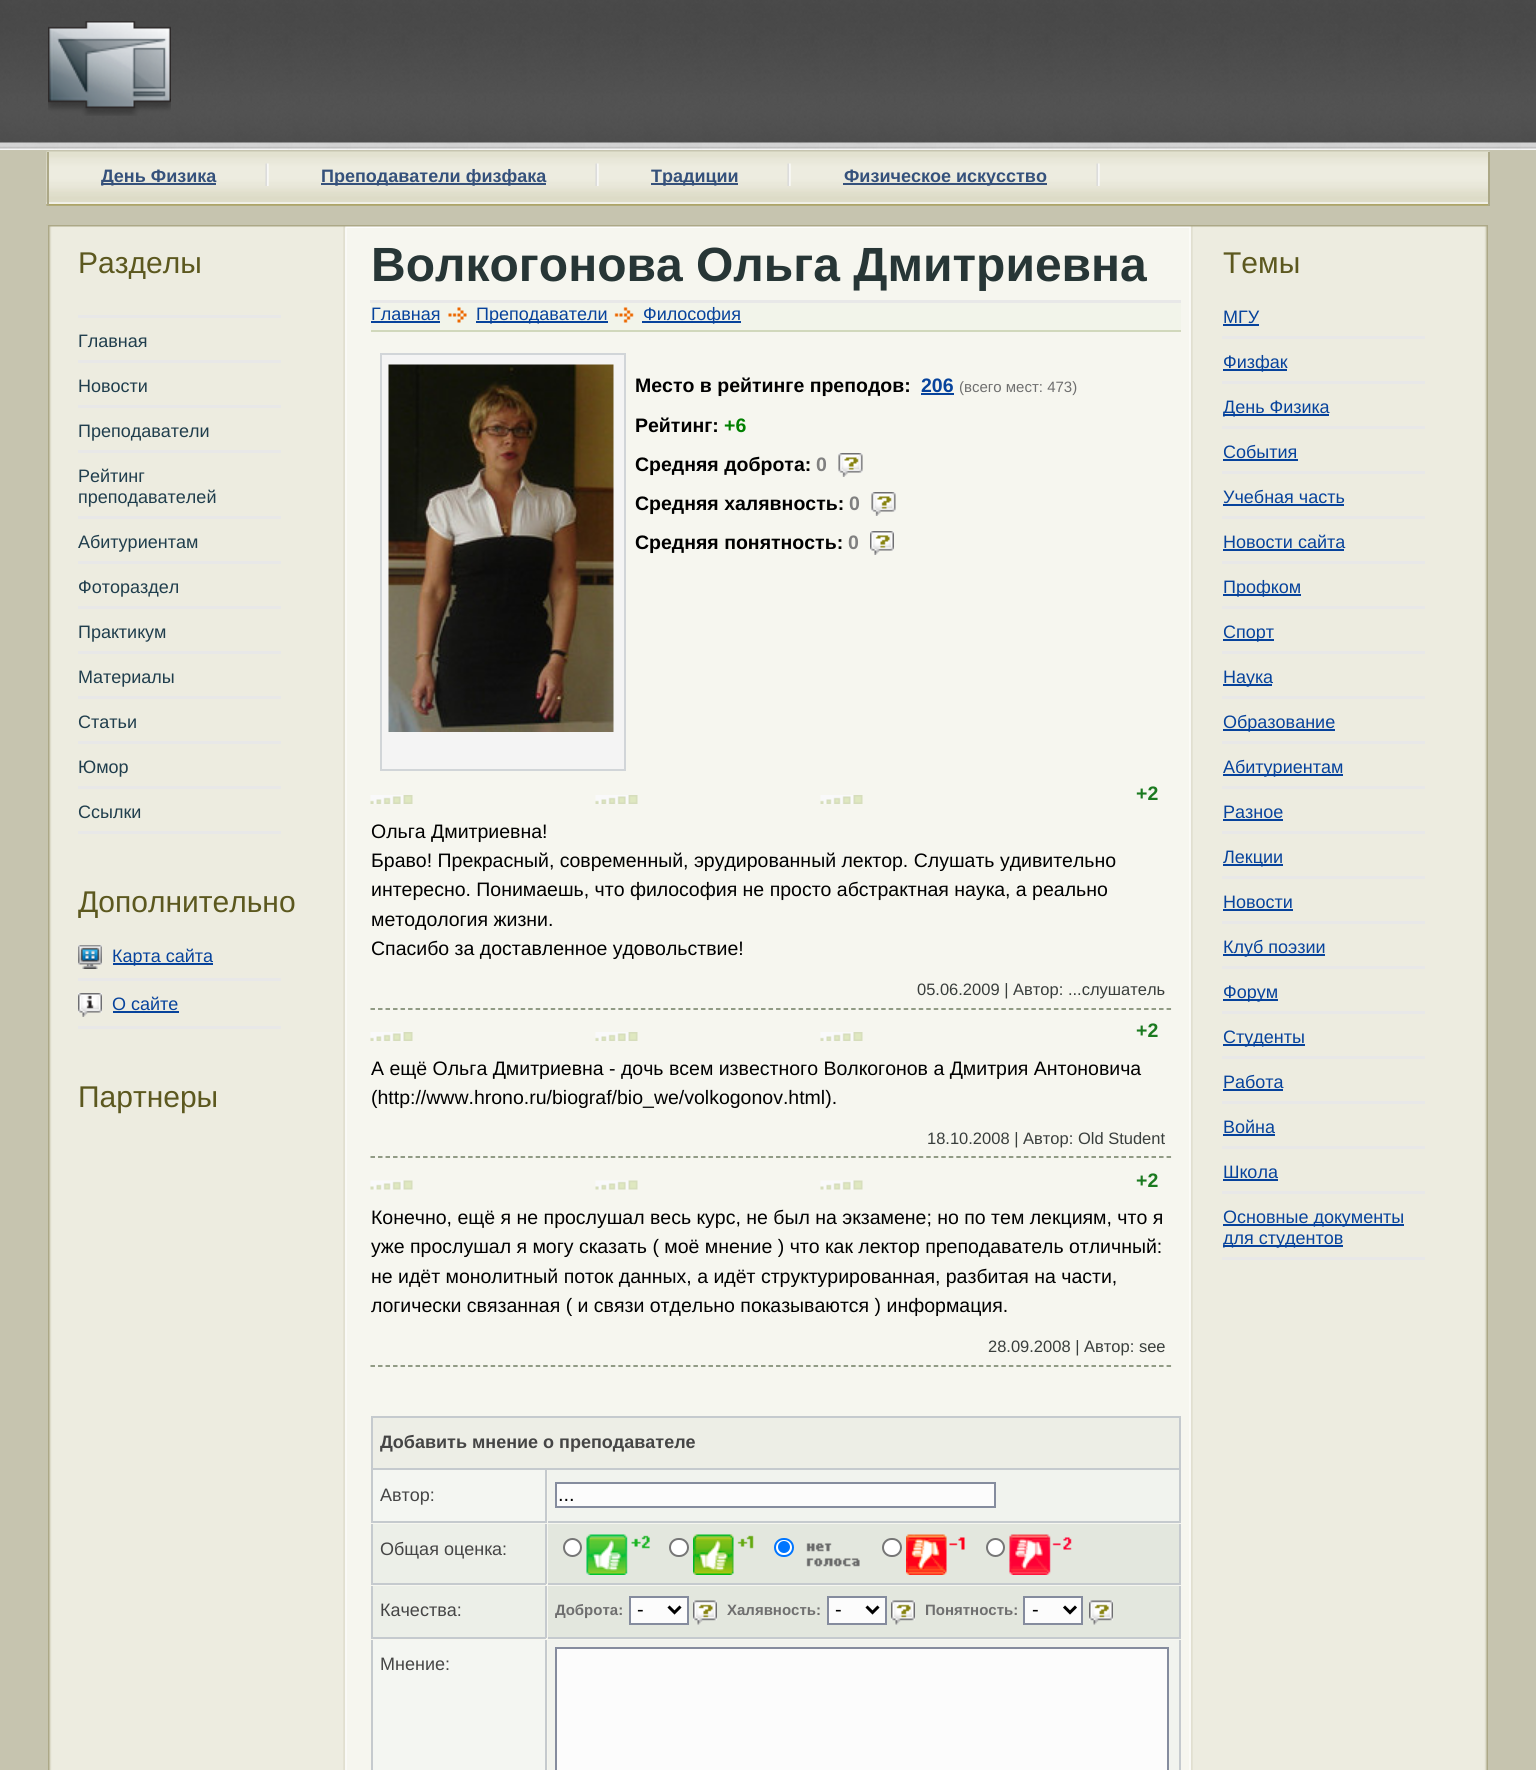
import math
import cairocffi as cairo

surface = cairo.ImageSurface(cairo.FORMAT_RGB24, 1536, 1770)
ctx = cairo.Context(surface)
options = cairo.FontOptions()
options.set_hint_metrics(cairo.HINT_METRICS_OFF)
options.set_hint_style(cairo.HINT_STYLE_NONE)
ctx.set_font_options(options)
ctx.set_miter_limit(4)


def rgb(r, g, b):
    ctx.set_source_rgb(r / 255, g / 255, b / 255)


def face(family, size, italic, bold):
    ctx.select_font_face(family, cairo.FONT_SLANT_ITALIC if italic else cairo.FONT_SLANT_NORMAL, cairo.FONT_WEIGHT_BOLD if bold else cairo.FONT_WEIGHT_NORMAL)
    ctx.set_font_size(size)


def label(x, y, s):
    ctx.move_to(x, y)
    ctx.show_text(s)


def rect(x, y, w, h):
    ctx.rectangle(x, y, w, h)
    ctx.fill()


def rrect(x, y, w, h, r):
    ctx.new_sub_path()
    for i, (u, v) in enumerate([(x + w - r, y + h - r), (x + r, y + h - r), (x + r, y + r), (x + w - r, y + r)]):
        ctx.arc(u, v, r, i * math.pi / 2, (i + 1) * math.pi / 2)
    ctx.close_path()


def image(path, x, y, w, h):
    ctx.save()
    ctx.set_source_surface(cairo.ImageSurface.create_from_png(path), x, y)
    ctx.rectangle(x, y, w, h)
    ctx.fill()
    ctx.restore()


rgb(198, 196, 175)
ctx.paint()
image('image0.png', 0, 0, 1536, 150)
image('image1.png', 48, 21, 123, 95)
image('image2.png', 46, 151, 1444, 55)
rgb(172, 168, 135)
rect(1488, 152, 2, 54)
rect(47, 152, 2, 54)
image('image3.png', 265, 163, 4, 23)
rgb(53, 81, 123)
rect(101, 183, 115, 2)
face('Liberation Sans', 18, 0, 1)
label(101, 182, 'День Физика')
image('image3.png', 595, 163, 4, 23)
rect(321, 183, 225, 2)
label(321, 182, 'Преподаватели физфака')
image('image3.png', 787, 163, 4, 23)
rect(651, 183, 87, 2)
label(651, 182, 'Традиции')
image('image3.png', 1096, 163, 4, 23)
rect(843, 183, 204, 2)
label(844, 182, 'Физическое искусство')
image('image4.png', 48, 225, 1440, 1545)
image('image5.png', 49, 225, 1438, 3)
face('Liberation Sans', 30, 0, 0)
rgb(92, 88, 31)
label(78, 273, 'Разделы')
rgb(232, 232, 232)
rect(78, 315, 203, 3)
rect(78, 360, 203, 3)
face('Liberation Sans', 18, 0, 0)
rgb(32, 62, 77)
label(78, 347, 'Главная')
rgb(232, 232, 232)
rect(78, 405, 203, 3)
rgb(32, 62, 77)
label(78, 392, 'Новости')
rgb(232, 232, 232)
rect(78, 450, 203, 3)
rgb(32, 62, 77)
label(78, 437, 'Преподаватели')
rgb(232, 232, 232)
rect(78, 516, 203, 3)
rgb(32, 62, 77)
label(78, 482, 'Рейтинг')
label(78, 503, 'преподавателей')
rgb(232, 232, 232)
rect(78, 561, 203, 3)
rgb(32, 62, 77)
label(78, 548, 'Абитуриентам')
rgb(232, 232, 232)
rect(78, 606, 203, 3)
rgb(32, 62, 77)
label(78, 593, 'Фотораздел')
rgb(232, 232, 232)
rect(78, 651, 203, 3)
rgb(32, 62, 77)
label(78, 638, 'Практикум')
rgb(232, 232, 232)
rect(78, 696, 203, 3)
rgb(32, 62, 77)
label(78, 683, 'Материалы')
rgb(232, 232, 232)
rect(78, 741, 203, 3)
rgb(32, 62, 77)
label(78, 728, 'Статьи')
rgb(232, 232, 232)
rect(78, 786, 203, 3)
rgb(32, 62, 77)
label(78, 773, 'Юмор')
rgb(232, 232, 232)
rect(78, 831, 203, 3)
rgb(32, 62, 77)
label(78, 818, 'Ссылки')
face('Liberation Sans', 30, 0, 0)
rgb(92, 88, 31)
label(78, 912, 'Дополнительно')
rgb(232, 232, 232)
rect(78, 978, 203, 3)
image('image6.png', 78, 945, 24, 24)
rgb(7, 67, 156)
rect(113, 963, 100, 2)
face('Liberation Sans', 18, 0, 0)
label(112, 962, 'Карта сайта')
rgb(232, 232, 232)
rect(78, 1026, 203, 3)
image('image7.png', 78, 993, 24, 24)
rgb(7, 67, 156)
label(112, 1010, 'О сайте')
rect(113, 1011, 66, 2)
face('Liberation Sans', 30, 0, 0)
rgb(92, 88, 31)
label(78, 1107, 'Партнеры')
rgb(232, 232, 232)
rect(370, 300, 811, 3)
face('Liberation Sans', 48, 0, 1)
rgb(39, 54, 54)
label(371, 281, 'Волкогонова Ольга Дмитриевна')
rgb(242, 244, 234)
rect(371, 303, 810, 27)
rgb(209, 216, 188)
rect(371, 330, 810, 2)
face('Liberation Sans', 18, 0, 0)
rgb(7, 67, 156)
label(371, 320, 'Главная')
rect(371, 321, 69, 2)
image('image8.png', 448, 307, 19, 16)
rect(476, 321, 132, 2)
label(476, 320, 'Преподаватели')
image('image9.png', 614, 307, 20, 16)
rect(642, 321, 99, 2)
label(643, 320, 'Философия')
rgb(244, 244, 244)
ctx.rectangle(381, 354, 244, 416)
ctx.fill_preserve()
rgb(209, 213, 216)
ctx.stroke()
image('image10.png', 388, 364, 226, 368)
face('Liberation Sans', 19.5, 0, 1)
rgb(0, 0, 0)
label(635, 392, 'Место в рейтинге преподов:')
rgb(7, 67, 156)
label(921, 392, '206')
rect(921, 393, 33, 2)
face('Liberation Sans', 15, 0, 0)
rgb(111, 111, 111)
label(959, 392, '(всего мест: 473)')
face('Liberation Sans', 19.5, 0, 1)
rgb(0, 0, 0)
label(635, 432, 'Рейтинг:')
rgb(0, 128, 0)
label(724, 432, '+6')
rgb(0, 0, 0)
label(635, 471, 'Средняя доброта:')
rgb(128, 128, 128)
label(816, 471, '0')
image('image11.png', 838, 453, 25, 24)
rgb(0, 0, 0)
label(635, 510, 'Средняя халявность:')
rgb(128, 128, 128)
label(849, 510, '0')
image('image11.png', 871, 492, 25, 24)
rgb(0, 0, 0)
label(635, 549, 'Средняя понятность:')
rgb(128, 128, 128)
label(848, 549, '0')
image('image12.png', 870, 531, 24, 24)
image('image13.png', 370, 795, 43, 9)
image('image13.png', 595, 795, 43, 9)
image('image14.png', 820, 795, 43, 9)
rgb(27, 122, 32)
label(1136, 800, '+2')
face('Liberation Sans', 19.5, 0, 0)
rgb(0, 0, 0)
label(371, 838, 'Ольга Дмитриевна!')
label(371, 867, 'Браво! Прекрасный, современный, эрудированный лектор. Слушать удивительно')
label(371, 896, 'интересно. Понимаешь, что философия не просто абстрактная наука, а реально')
label(371, 926, 'методология жизни.')
label(371, 955, 'Спасибо за доставленное удовольствие!')
ctx.new_path()
ctx.move_to(370.5, 1009)
ctx.line_to(1171.5, 1009)
rgb(112, 125, 98)
ctx.set_line_width(1.5)
ctx.set_dash([4.5, 3.01])
ctx.stroke()
face('Liberation Sans', 16.5, 0, 0)
rgb(57, 62, 60)
label(917, 995, '05.06.2009 | Автор: ...слушатель')
image('image13.png', 370, 1032, 43, 9)
image('image13.png', 595, 1032, 43, 9)
image('image14.png', 820, 1032, 43, 9)
face('Liberation Sans', 19.5, 0, 1)
rgb(27, 122, 32)
label(1136, 1037, '+2')
face('Liberation Sans', 19.5, 0, 0)
rgb(0, 0, 0)
label(371, 1075, 'А ещё Ольга Дмитриевна - дочь всем известного Волкогонов а Дмитрия Антоновича')
label(371, 1104, '(http://www.hrono.ru/biograf/bio_we/volkogonov.html).')
ctx.new_path()
ctx.move_to(370.5, 1157)
ctx.line_to(1171.5, 1157)
rgb(112, 125, 98)
ctx.stroke()
face('Liberation Sans', 16.5, 0, 0)
rgb(57, 62, 60)
label(927, 1144, '18.10.2008 | Автор: Old Student')
image('image15.png', 370, 1180, 43, 10)
image('image15.png', 595, 1180, 43, 10)
image('image16.png', 820, 1180, 43, 10)
face('Liberation Sans', 19.5, 0, 1)
rgb(27, 122, 32)
label(1136, 1187, '+2')
face('Liberation Sans', 19.5, 0, 0)
rgb(0, 0, 0)
label(371, 1224, 'Конечно, ещё я не прослушал весь курс, не был на экзамене; но по тем лекциям, что я')
label(371, 1253, 'уже прослушал я могу сказать ( моё мнение ) что как лектор преподаватель отличный:')
label(371, 1283, 'не идёт монолитный поток данных, а идёт структурированная, разбитая на части,')
label(371, 1312, 'логически связанная ( и связи отдельно показываются ) информация.')
ctx.new_path()
ctx.move_to(370.5, 1366)
ctx.line_to(1171.5, 1366)
rgb(112, 125, 98)
ctx.stroke()
face('Liberation Sans', 16.5, 0, 0)
rgb(57, 62, 60)
label(988, 1352, '28.09.2008 | Автор: see')
rgb(237, 238, 230)
ctx.rectangle(372, 1417, 808, 52)
ctx.fill_preserve()
rgb(197, 202, 206)
ctx.set_line_width(2)
ctx.set_dash([])
ctx.stroke()
face('Liberation Sans', 18, 0, 1)
rgb(69, 69, 69)
label(380, 1448, 'Добавить мнение о преподавателе')
rgb(244, 246, 242)
rect(373, 1470, 172, 51)
rgb(197, 202, 206)
rect(545, 1470, 2, 53)
rect(371, 1521, 175, 2)
rect(371, 1470, 2, 53)
face('Liberation Sans', 18, 0, 0)
rgb(69, 69, 69)
label(380, 1501, 'Автор:')
rgb(241, 243, 238)
rect(548, 1470, 631, 51)
rgb(197, 202, 206)
rect(1179, 1470, 2, 53)
rect(548, 1521, 633, 2)
rgb(252, 252, 252)
ctx.rectangle(556, 1483, 439, 24)
ctx.fill_preserve()
rgb(133, 140, 158)
ctx.stroke()
face('Liberation Sans', 20, 0, 0)
rgb(0, 0, 0)
label(558, 1501, '...')
rgb(236, 239, 232)
rect(373, 1524, 172, 59)
rgb(197, 202, 206)
rect(545, 1524, 2, 60)
rect(371, 1583, 175, 2)
rect(371, 1524, 2, 60)
face('Liberation Sans', 18, 0, 0)
rgb(69, 69, 69)
label(380, 1555, 'Общая оценка:')
rgb(227, 231, 222)
rect(548, 1524, 631, 59)
rgb(197, 202, 206)
rect(1179, 1524, 2, 60)
rect(548, 1583, 633, 2)
rgb(255, 255, 255)
ctx.new_path()
ctx.arc(572.5, 1547.5, 8.5, 0, 2 * math.pi)
ctx.fill_preserve()
rgb(118, 118, 118)
ctx.stroke()
image('image17.png', 586, 1534, 64, 41)
rgb(255, 255, 255)
rrect(670, 1539, 18, 17, 8.5)
ctx.fill_preserve()
rgb(118, 118, 118)
ctx.stroke()
image('image18.png', 693, 1534, 61, 41)
rgb(255, 255, 255)
rrect(775, 1539, 18, 17, 8.5)
ctx.fill_preserve()
rgb(0, 117, 255)
ctx.stroke()
ctx.arc(784, 1547, 6, 0, 2 * math.pi)
ctx.fill()
image('image19.png', 806, 1543, 54, 24)
rgb(255, 255, 255)
rrect(883, 1539, 18, 17, 8.5)
ctx.fill_preserve()
rgb(118, 118, 118)
ctx.stroke()
image('image20.png', 906, 1534, 59, 41)
rgb(255, 255, 255)
ctx.arc(995.5, 1547.5, 8.5, 0, 2 * math.pi)
ctx.fill_preserve()
rgb(118, 118, 118)
ctx.stroke()
image('image21.png', 1009, 1534, 63, 41)
rgb(236, 239, 232)
rect(373, 1586, 172, 51)
rgb(197, 202, 206)
rect(545, 1586, 2, 52)
rect(371, 1637, 175, 2)
rect(371, 1586, 2, 52)
rgb(69, 69, 69)
label(380, 1616, 'Качества:')
rgb(227, 231, 222)
rect(548, 1586, 631, 51)
rgb(197, 202, 206)
rect(1179, 1586, 2, 52)
rect(548, 1637, 633, 2)
face('Liberation Sans', 15, 0, 1)
rgb(111, 111, 111)
label(555, 1615, 'Доброта:')
rgb(252, 252, 252)
ctx.rectangle(630, 1597, 58, 27)
ctx.fill_preserve()
rgb(133, 140, 158)
ctx.stroke()
ctx.new_path()
ctx.move_to(668.5, 1606.5)
ctx.line_to(674.5, 1612.5)
ctx.line_to(680.5, 1606.5)
rgb(0, 0, 0)
ctx.set_line_width(3)
ctx.stroke()
face('Liberation Sans', 20, 0, 0)
label(637, 1616, '-')
image('image22.png', 693, 1600, 24, 25)
face('Liberation Sans', 15, 0, 1)
rgb(111, 111, 111)
label(727, 1615, 'Халявность:')
rgb(252, 252, 252)
ctx.rectangle(828, 1597, 58, 27)
ctx.fill_preserve()
rgb(133, 140, 158)
ctx.set_line_width(2)
ctx.stroke()
ctx.new_path()
ctx.move_to(866.5, 1606.5)
ctx.line_to(872.5, 1612.5)
ctx.line_to(878.5, 1606.5)
rgb(0, 0, 0)
ctx.set_line_width(3)
ctx.stroke()
face('Liberation Sans', 20, 0, 0)
label(835, 1616, '-')
image('image22.png', 891, 1600, 24, 25)
face('Liberation Sans', 15, 0, 1)
rgb(111, 111, 111)
label(925, 1615, 'Понятность:')
rgb(252, 252, 252)
ctx.rectangle(1024, 1597, 58, 27)
ctx.fill_preserve()
rgb(133, 140, 158)
ctx.set_line_width(2)
ctx.stroke()
ctx.new_path()
ctx.move_to(1064, 1606.5)
ctx.line_to(1070, 1612.5)
ctx.line_to(1076, 1606.5)
rgb(0, 0, 0)
ctx.set_line_width(3)
ctx.stroke()
face('Liberation Sans', 20, 0, 0)
label(1032, 1616, '-')
image('image23.png', 1089, 1600, 24, 25)
rgb(244, 246, 242)
rect(373, 1640, 172, 130)
rgb(197, 202, 206)
rect(545, 1640, 2, 130)
rect(371, 1640, 2, 130)
face('Liberation Sans', 18, 0, 0)
rgb(69, 69, 69)
label(380, 1670, 'Мнение:')
rgb(241, 243, 238)
rect(548, 1640, 631, 130)
rgb(197, 202, 206)
rect(1179, 1640, 2, 130)
rgb(252, 252, 252)
ctx.rectangle(556, 1648, 612, 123)
ctx.fill_preserve()
rgb(133, 140, 158)
ctx.set_line_width(2)
ctx.stroke()
face('Liberation Sans', 30, 0, 0)
rgb(92, 88, 31)
label(1223, 273, 'Темы')
rgb(232, 232, 232)
rect(1222, 336, 203, 3)
face('Liberation Sans', 18, 0, 0)
rgb(7, 67, 156)
label(1223, 323, 'МГУ')
rect(1223, 324, 36, 2)
rgb(232, 232, 232)
rect(1222, 381, 203, 3)
rgb(7, 67, 156)
rect(1223, 369, 64, 2)
label(1223, 368, 'Физфак')
rgb(232, 232, 232)
rect(1222, 426, 203, 3)
rgb(7, 67, 156)
rect(1223, 414, 106, 2)
label(1223, 413, 'День Физика')
rgb(232, 232, 232)
rect(1222, 471, 203, 3)
rgb(7, 67, 156)
label(1223, 458, 'События')
rect(1223, 459, 75, 2)
rgb(232, 232, 232)
rect(1222, 516, 203, 3)
rgb(7, 67, 156)
label(1223, 503, 'Учебная часть')
rect(1223, 504, 121, 2)
rgb(232, 232, 232)
rect(1222, 561, 203, 3)
rgb(7, 67, 156)
label(1223, 548, 'Новости сайта')
rect(1223, 549, 121, 2)
rgb(232, 232, 232)
rect(1222, 606, 203, 3)
rgb(7, 67, 156)
rect(1223, 594, 78, 2)
label(1223, 593, 'Профком')
rgb(232, 232, 232)
rect(1222, 651, 203, 3)
rgb(7, 67, 156)
rect(1223, 639, 51, 2)
label(1223, 638, 'Спорт')
rgb(232, 232, 232)
rect(1222, 696, 203, 3)
rgb(7, 67, 156)
rect(1223, 684, 49, 2)
label(1223, 683, 'Наука')
rgb(232, 232, 232)
rect(1222, 741, 203, 3)
rgb(7, 67, 156)
rect(1223, 729, 112, 2)
label(1223, 728, 'Образование')
rgb(232, 232, 232)
rect(1222, 786, 203, 3)
rgb(7, 67, 156)
rect(1223, 774, 120, 2)
label(1223, 773, 'Абитуриентам')
rgb(232, 232, 232)
rect(1222, 831, 203, 3)
rgb(7, 67, 156)
label(1223, 818, 'Разное')
rect(1223, 819, 60, 2)
rgb(232, 232, 232)
rect(1222, 876, 203, 3)
rgb(7, 67, 156)
rect(1223, 864, 60, 2)
label(1223, 863, 'Лекции')
rgb(232, 232, 232)
rect(1222, 921, 203, 3)
rgb(7, 67, 156)
label(1223, 908, 'Новости')
rect(1223, 909, 70, 2)
rgb(232, 232, 232)
rect(1222, 966, 203, 3)
rgb(7, 67, 156)
rect(1223, 954, 102, 2)
label(1223, 953, 'Клуб поэзии')
rgb(232, 232, 232)
rect(1222, 1011, 203, 3)
rgb(7, 67, 156)
rect(1223, 999, 55, 2)
label(1223, 998, 'Форум')
rgb(232, 232, 232)
rect(1222, 1056, 203, 3)
rgb(7, 67, 156)
rect(1223, 1044, 82, 2)
label(1223, 1043, 'Студенты')
rgb(232, 232, 232)
rect(1222, 1101, 203, 3)
rgb(7, 67, 156)
label(1223, 1088, 'Работа')
rect(1223, 1089, 60, 2)
rgb(232, 232, 232)
rect(1222, 1146, 203, 3)
rgb(7, 67, 156)
label(1223, 1133, 'Война')
rect(1223, 1134, 52, 2)
rgb(232, 232, 232)
rect(1222, 1191, 203, 3)
rgb(7, 67, 156)
label(1223, 1178, 'Школа')
rect(1223, 1179, 55, 2)
rgb(232, 232, 232)
rect(1222, 1257, 203, 3)
rgb(7, 67, 156)
rect(1223, 1224, 181, 2)
label(1223, 1223, 'Основные документы')
rect(1223, 1245, 120, 2)
label(1223, 1244, 'для студентов')
surface.write_to_png('render.png')
